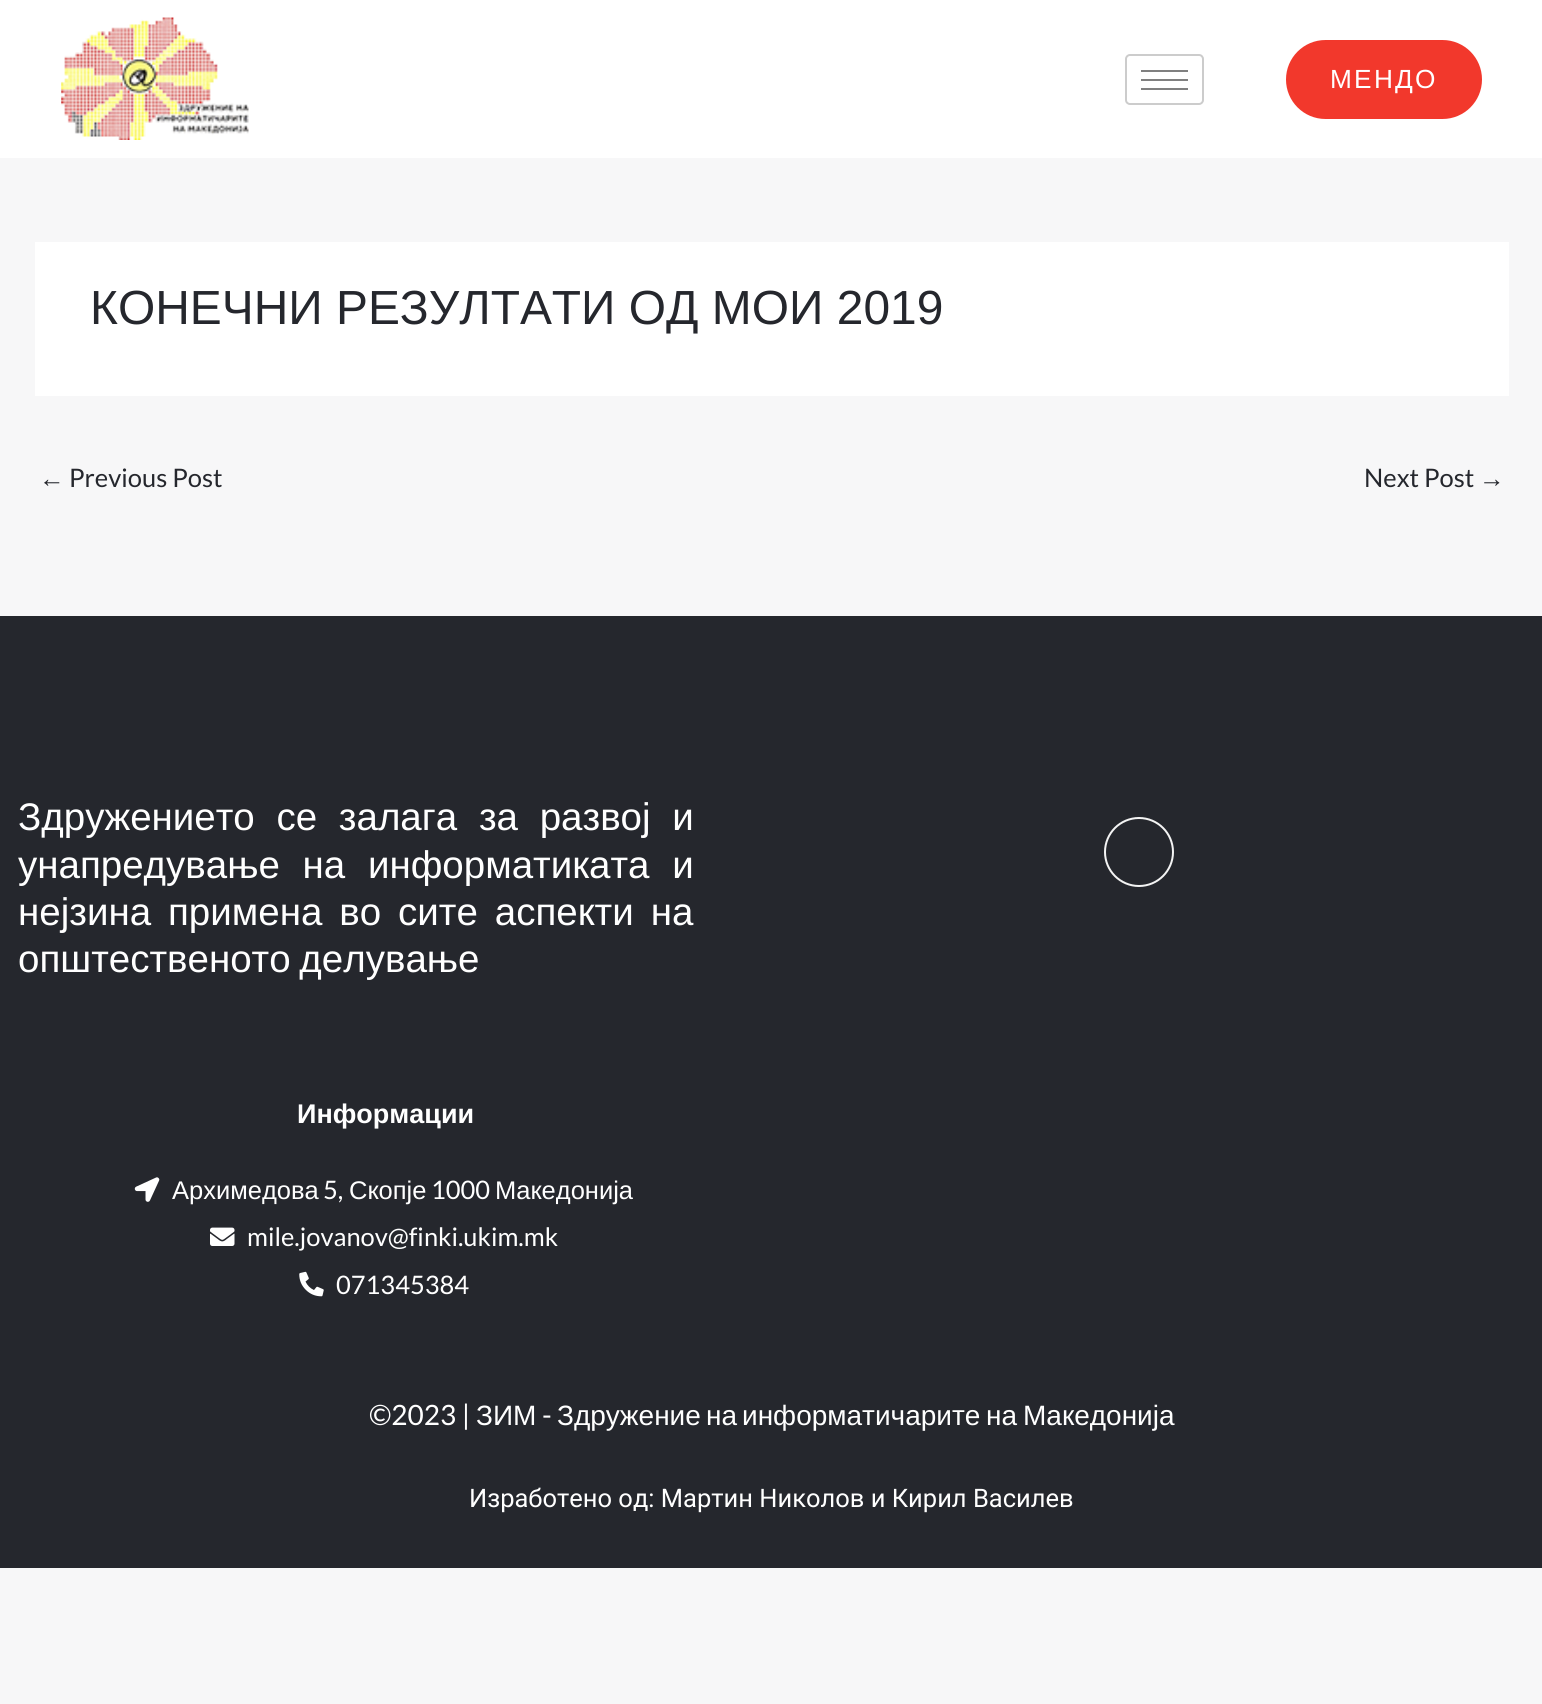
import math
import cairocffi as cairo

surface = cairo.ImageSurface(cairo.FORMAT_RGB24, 1542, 1704)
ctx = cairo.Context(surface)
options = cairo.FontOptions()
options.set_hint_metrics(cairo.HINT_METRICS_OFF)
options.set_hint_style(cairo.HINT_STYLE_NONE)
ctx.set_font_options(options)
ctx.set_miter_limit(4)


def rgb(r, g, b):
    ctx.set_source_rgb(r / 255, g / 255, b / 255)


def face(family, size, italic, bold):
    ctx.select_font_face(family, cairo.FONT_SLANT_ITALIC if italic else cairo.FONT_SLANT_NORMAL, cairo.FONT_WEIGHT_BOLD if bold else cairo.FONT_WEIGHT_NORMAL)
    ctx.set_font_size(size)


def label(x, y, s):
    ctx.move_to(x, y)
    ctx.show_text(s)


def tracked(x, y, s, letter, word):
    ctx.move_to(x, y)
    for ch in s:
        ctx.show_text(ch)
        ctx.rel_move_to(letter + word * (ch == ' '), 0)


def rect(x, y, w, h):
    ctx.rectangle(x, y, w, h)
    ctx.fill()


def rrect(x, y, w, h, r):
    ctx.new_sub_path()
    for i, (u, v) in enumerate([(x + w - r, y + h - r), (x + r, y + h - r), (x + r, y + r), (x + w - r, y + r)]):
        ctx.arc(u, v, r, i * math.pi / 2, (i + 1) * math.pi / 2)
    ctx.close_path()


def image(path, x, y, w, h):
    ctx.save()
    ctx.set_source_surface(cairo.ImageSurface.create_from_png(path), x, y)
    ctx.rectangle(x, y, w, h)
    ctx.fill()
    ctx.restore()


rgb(247, 247, 248)
ctx.paint()
rgb(255, 255, 255)
rect(0, 0, 1542, 158)
image('image0.png', 61, 17, 188, 123)
rrect(1126, 55, 77, 49, 4)
rgb(204, 204, 204)
ctx.stroke()
rgb(128, 128, 128)
rect(1141, 70, 47, 2)
rect(1141, 79, 47, 2)
rect(1141, 88, 47, 2)
rgb(242, 56, 44)
rrect(1286, 40, 196, 79, 39.5)
ctx.fill()
face('Liberation Sans', 26.25, 0, 0)
rgb(255, 255, 255)
tracked(1330, 88, 'МЕНДО', 2.25, 0)
rect(35, 242, 1474, 154)
face('Liberation Sans', 47.9, 0, 0)
rgb(37, 39, 45)
label(90, 324, 'КОНЕЧНИ РЕЗУЛТАТИ ОД МОИ 2019')
face('Liberation Sans', 25.5, 0, 0)
label(39, 487, '←')
face('Lato', 25.5, 0, 0)
label(69, 487, 'Previous Post')
label(1364, 487, 'Next Post')
face('Liberation Sans', 25.5, 0, 0)
label(1479, 487, '→')
rect(0, 616, 1542, 952)
face('Liberation Sans', 38.5, 0, 0)
rgb(255, 255, 255)
tracked(18, 830, 'Здружението се залага за развој и', 0, 11)
tracked(18, 878, 'унапредување на информатиката и', 0, 12)
tracked(18, 925, 'нејзина примена во сите аспекти на', 0, 6.25)
tracked(18, 972, 'општественото делување', 0, -2)
ctx.new_path()
ctx.arc(1139, 852, 34, 0, 2 * math.pi)
rgb(244, 244, 244)
ctx.stroke()
face('Liberation Sans', 27, 0, 1)
rgb(255, 255, 255)
label(297, 1123, 'Информации')
image('image1.png', 134, 1177, 26, 25)
face('Liberation Sans', 25.5, 0, 0)
label(172, 1199, 'Архимедова')
face('Lato', 25.5, 0, 0)
label(323, 1199, '5,')
face('Liberation Sans', 25.5, 0, 0)
label(349, 1199, 'Скопје')
face('Lato', 25.5, 0, 0)
label(431, 1199, '1000')
face('Liberation Sans', 25.5, 0, 0)
label(495, 1199, 'Македонија')
image('image2.png', 210, 1227, 25, 19)
face('Lato', 25.5, 0, 0)
label(247, 1246, 'mile.jovanov@finki.ukim.mk')
image('image3.png', 299, 1271, 25, 26)
label(336, 1294, '071345384')
face('Lato', 28, 0, 0)
label(369, 1425, '©2023 |')
face('Liberation Sans', 28, 0, 0)
label(476, 1425, 'ЗИМ')
face('Lato', 28, 0, 0)
label(542, 1425, '-')
face('Liberation Sans', 28, 0, 0)
label(557, 1425, 'Здружение')
label(706, 1425, 'на')
label(742, 1425, 'информатичарите')
label(986, 1425, 'на')
label(1023, 1425, 'Македонија')
face('Roboto', 25.5, 0, 0)
label(469, 1507, 'Изработено од: Мартин Николов и Кирил Василев')
surface.write_to_png('render.png')
